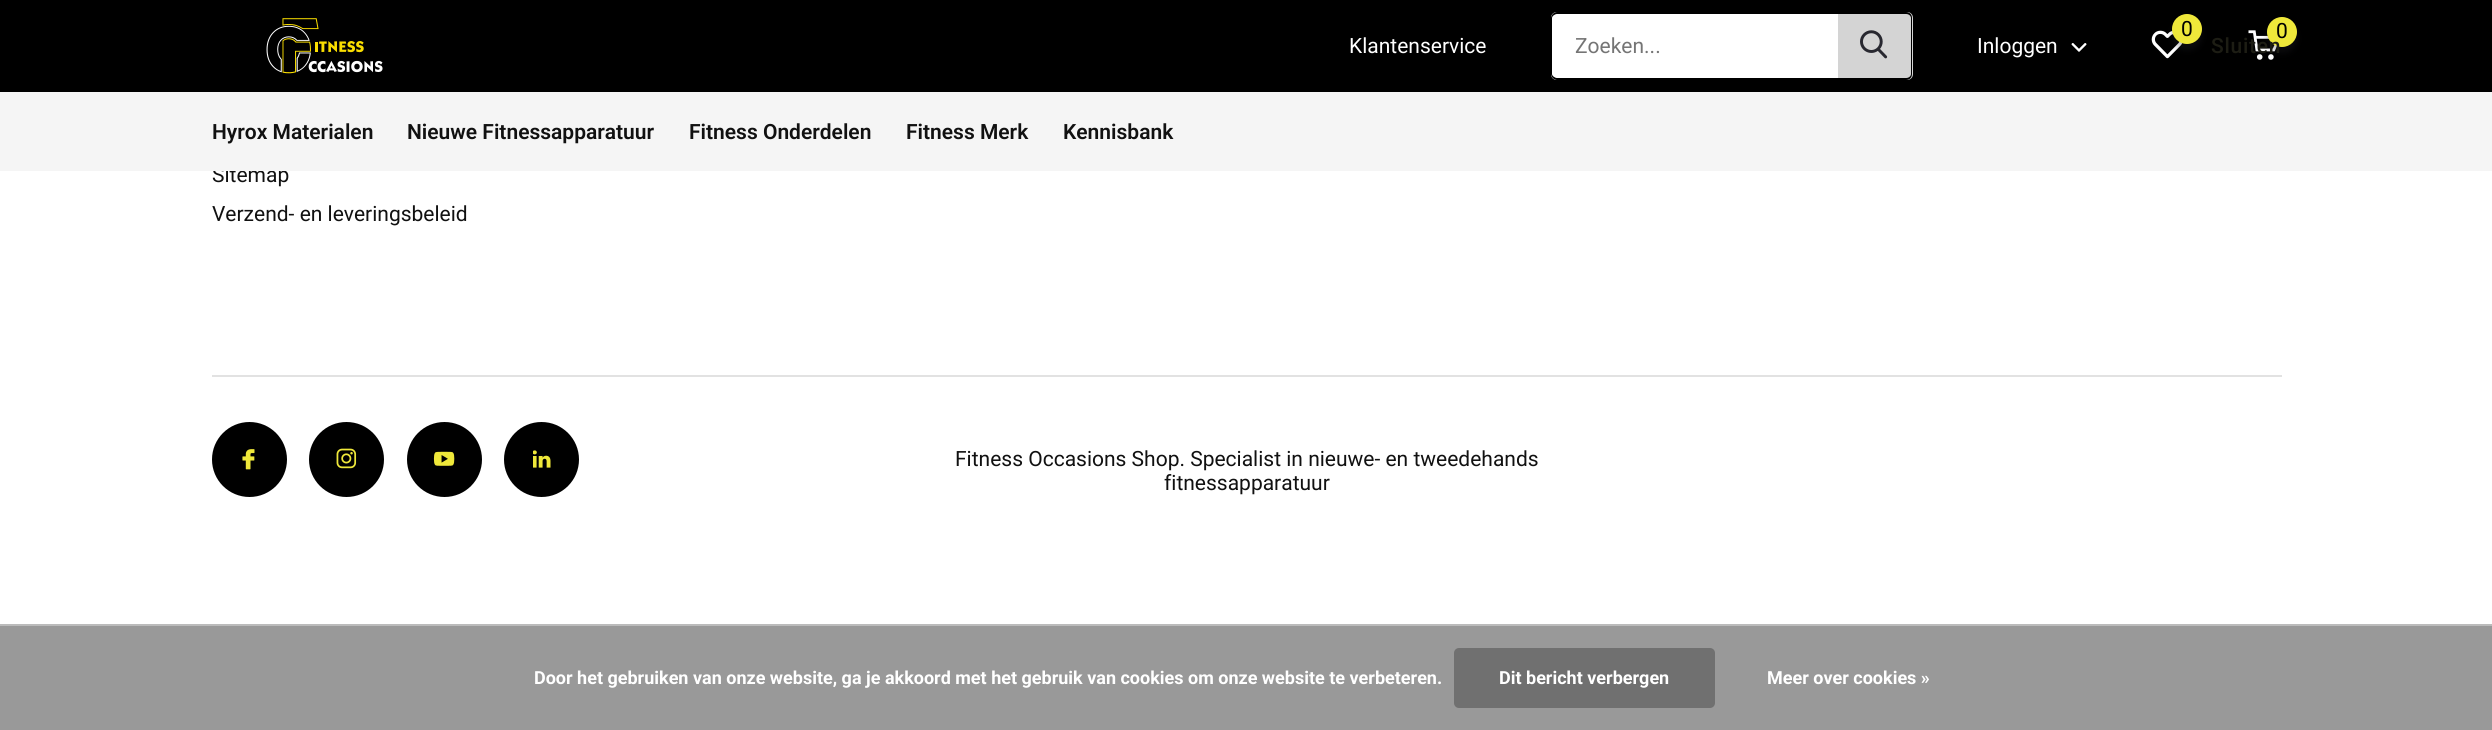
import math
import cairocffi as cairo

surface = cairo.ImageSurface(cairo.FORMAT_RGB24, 2492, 730)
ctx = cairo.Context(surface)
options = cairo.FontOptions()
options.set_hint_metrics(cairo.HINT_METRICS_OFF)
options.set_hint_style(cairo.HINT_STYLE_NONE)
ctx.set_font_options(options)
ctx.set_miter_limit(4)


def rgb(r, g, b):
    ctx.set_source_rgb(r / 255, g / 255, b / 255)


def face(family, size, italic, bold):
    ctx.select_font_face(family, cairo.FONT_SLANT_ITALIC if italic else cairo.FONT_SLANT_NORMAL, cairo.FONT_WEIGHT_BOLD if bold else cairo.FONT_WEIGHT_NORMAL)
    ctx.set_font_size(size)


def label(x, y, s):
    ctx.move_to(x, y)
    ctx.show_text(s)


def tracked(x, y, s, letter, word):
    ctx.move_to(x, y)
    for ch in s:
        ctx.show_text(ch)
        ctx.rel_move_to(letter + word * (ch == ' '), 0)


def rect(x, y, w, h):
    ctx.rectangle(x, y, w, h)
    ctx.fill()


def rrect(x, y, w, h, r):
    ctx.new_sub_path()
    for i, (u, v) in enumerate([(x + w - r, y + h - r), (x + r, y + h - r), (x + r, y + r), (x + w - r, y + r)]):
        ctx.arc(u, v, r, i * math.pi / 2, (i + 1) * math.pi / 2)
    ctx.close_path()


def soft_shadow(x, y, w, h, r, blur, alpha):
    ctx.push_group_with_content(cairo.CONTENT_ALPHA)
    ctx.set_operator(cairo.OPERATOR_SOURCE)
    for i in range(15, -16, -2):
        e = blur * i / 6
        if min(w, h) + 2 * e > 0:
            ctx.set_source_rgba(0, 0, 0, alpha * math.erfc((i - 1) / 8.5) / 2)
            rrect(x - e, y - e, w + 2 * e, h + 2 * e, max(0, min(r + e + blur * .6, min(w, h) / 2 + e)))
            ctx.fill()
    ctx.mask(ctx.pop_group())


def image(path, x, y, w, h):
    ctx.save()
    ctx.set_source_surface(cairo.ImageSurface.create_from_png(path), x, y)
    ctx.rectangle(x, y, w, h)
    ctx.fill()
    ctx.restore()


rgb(255, 255, 255)
ctx.paint()
rgb(0, 0, 0)
rect(0, 0, 2492, 92)
image('image0.png', 266, 18, 117, 56)
image('image1.png', 2151, 30, 32, 29)
rgb(40, 40, 48)
soft_shadow(2172, 20, 30, 30, 15, 3, 0.25)
rgb(239, 232, 58)
ctx.arc(2187, 29, 15, 0, 2 * math.pi)
ctx.fill()
face('Roboto', 21, 0, 0)
rgb(0, 0, 0)
label(2181, 36, '0')
image('image2.png', 2248, 30, 29, 30)
rgb(40, 40, 48)
soft_shadow(2267, 23, 30, 30, 15, 3, 0.25)
rgb(239, 232, 58)
ctx.arc(2282, 32, 15, 0, 2 * math.pi)
ctx.fill()
rgb(0, 0, 0)
label(2276, 38, '0')
rgb(255, 255, 255)
label(1349, 53, 'Klantenservice')
ctx.new_path()
ctx.move_to(1557, 12)
ctx.line_to(1838, 12)
ctx.line_to(1838, 80)
ctx.line_to(1557, 80)
ctx.curve_to(1553.5, 80, 1551, 77.5, 1551, 74)
ctx.line_to(1551, 18)
ctx.curve_to(1551, 14.5, 1553.5, 12, 1557, 12)
ctx.close_path()
ctx.fill()
rgb(0, 0, 0)
ctx.set_fill_rule(cairo.FILL_RULE_EVEN_ODD)
ctx.new_path()
ctx.move_to(1557, 12)
ctx.line_to(1838, 12)
ctx.line_to(1838, 80)
ctx.line_to(1557, 80)
ctx.curve_to(1554, 80, 1551, 77, 1551, 74)
ctx.line_to(1551, 18)
ctx.curve_to(1551, 15, 1554, 12, 1557, 12)
ctx.close_path()
ctx.move_to(1557, 14)
ctx.line_to(1838, 14)
ctx.line_to(1838, 78)
ctx.line_to(1557, 78)
ctx.curve_to(1555, 78, 1552, 76, 1552, 74)
ctx.line_to(1552, 18)
ctx.curve_to(1552, 16, 1555, 14, 1557, 14)
ctx.close_path()
ctx.fill()
rgb(117, 117, 117)
label(1575, 53, 'Zoeken...')
rgb(212, 212, 212)
ctx.new_path()
ctx.move_to(1838, 12)
ctx.line_to(1907, 12)
ctx.curve_to(1910.5, 12, 1913, 14.5, 1913, 18)
ctx.line_to(1913, 74)
ctx.curve_to(1913, 77.5, 1910.5, 80, 1907, 80)
ctx.line_to(1838, 80)
ctx.close_path()
ctx.fill()
rgb(0, 0, 0)
ctx.new_path()
ctx.move_to(1838, 12)
ctx.line_to(1906, 12)
ctx.curve_to(1910, 12, 1912, 15, 1912, 18)
ctx.line_to(1912, 74)
ctx.curve_to(1912, 77, 1910, 80, 1906, 80)
ctx.line_to(1838, 80)
ctx.close_path()
ctx.move_to(1838, 14)
ctx.line_to(1906, 14)
ctx.curve_to(1909, 14, 1911, 16, 1911, 18)
ctx.line_to(1911, 74)
ctx.curve_to(1911, 76, 1909, 78, 1906, 78)
ctx.line_to(1838, 78)
ctx.close_path()
ctx.fill()
image('image3.png', 1860, 30, 28, 29)
rgb(255, 255, 255)
label(1977, 53, 'Inloggen')
image('image4.png', 2071, 43, 16, 9)
face('Roboto Medium', 21, 0, 0)
rgb(29, 29, 20)
tracked(2211, 53, 'Sluiten', 0.75, 0)
face('Roboto', 21, 0, 0)
rgb(17, 17, 17)
label(212, 182, 'Sitemap')
rgb(245, 245, 245)
rect(0, 92, 2492, 79)
face('Roboto SemiBold', 21, 0, 0)
rgb(17, 17, 17)
label(212, 139, 'Hyrox Materialen')
label(407, 139, 'Nieuwe Fitnessapparatuur')
label(689, 139, 'Fitness Onderdelen')
label(906, 139, 'Fitness Merk')
label(1063, 139, 'Kennisbank')
rgb(226, 226, 226)
rect(212, 375, 2070, 2)
face('Roboto', 21, 0, 0)
rgb(17, 17, 17)
label(212, 221, 'Verzend- en leveringsbeleid')
rgb(0, 0, 0)
ctx.new_path()
ctx.arc(249.5, 459.5, 37.5, 0, 2 * math.pi)
ctx.fill()
image('image5.png', 242, 449, 13, 21)
ctx.arc(346.5, 459.5, 37.5, 0, 2 * math.pi)
ctx.fill()
image('image6.png', 336, 448, 21, 21)
ctx.arc(444.5, 459.5, 37.5, 0, 2 * math.pi)
ctx.fill()
image('image7.png', 433, 451, 22, 15)
ctx.arc(541.5, 459.5, 37.5, 0, 2 * math.pi)
ctx.fill()
image('image8.png', 533, 450, 18, 18)
rgb(17, 17, 17)
label(955, 466, 'Fitness Occasions Shop. Specialist in nieuwe- en tweedehands')
label(1164, 490, 'fitnessapparatuur')
rgb(153, 153, 153)
rect(0, 626, 2492, 104)
rgb(187, 187, 187)
rect(0, 624, 2492, 2)
face('Roboto', 18, 0, 1)
rgb(255, 255, 255)
label(534, 684, 'Door het gebruiken van onze website, ga je akkoord met het gebruik van cookies om onze website te verbeteren.')
rgb(112, 112, 112)
rrect(1454, 648, 261, 60, 5)
ctx.fill()
rgb(255, 255, 255)
label(1499, 684, 'Dit bericht verbergen')
label(1767, 684, 'Meer over cookies »')
surface.write_to_png('render.png')
